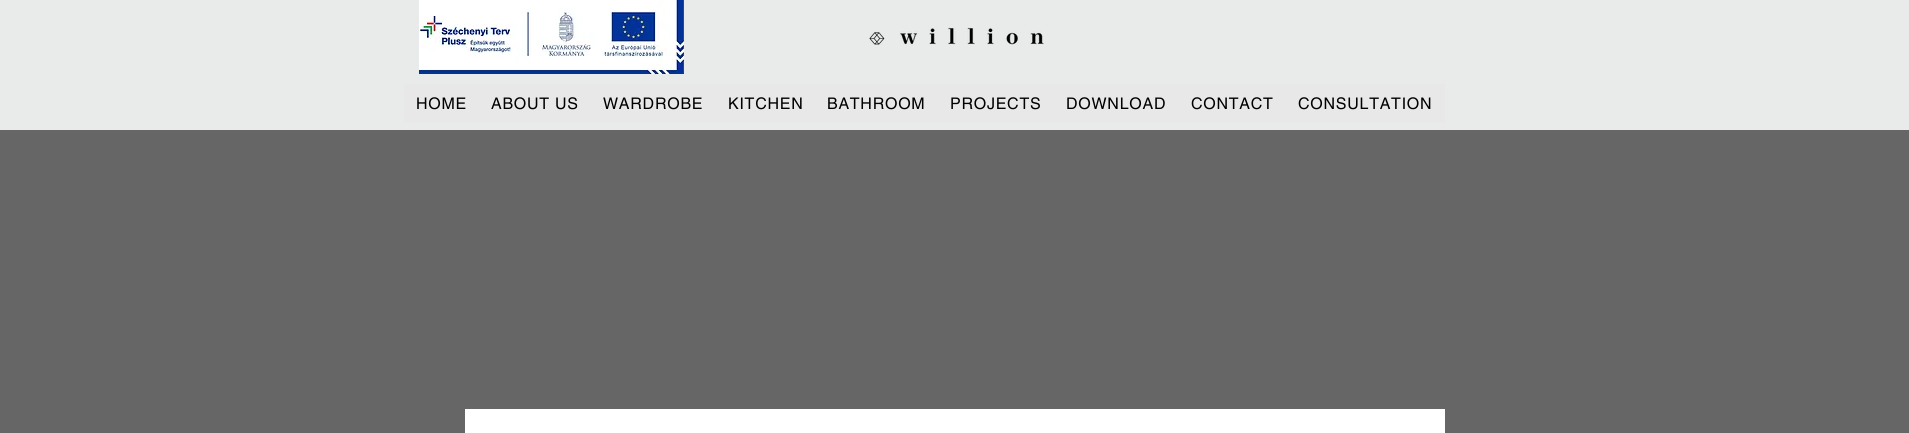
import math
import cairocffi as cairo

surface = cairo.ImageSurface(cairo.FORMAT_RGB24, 1909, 433)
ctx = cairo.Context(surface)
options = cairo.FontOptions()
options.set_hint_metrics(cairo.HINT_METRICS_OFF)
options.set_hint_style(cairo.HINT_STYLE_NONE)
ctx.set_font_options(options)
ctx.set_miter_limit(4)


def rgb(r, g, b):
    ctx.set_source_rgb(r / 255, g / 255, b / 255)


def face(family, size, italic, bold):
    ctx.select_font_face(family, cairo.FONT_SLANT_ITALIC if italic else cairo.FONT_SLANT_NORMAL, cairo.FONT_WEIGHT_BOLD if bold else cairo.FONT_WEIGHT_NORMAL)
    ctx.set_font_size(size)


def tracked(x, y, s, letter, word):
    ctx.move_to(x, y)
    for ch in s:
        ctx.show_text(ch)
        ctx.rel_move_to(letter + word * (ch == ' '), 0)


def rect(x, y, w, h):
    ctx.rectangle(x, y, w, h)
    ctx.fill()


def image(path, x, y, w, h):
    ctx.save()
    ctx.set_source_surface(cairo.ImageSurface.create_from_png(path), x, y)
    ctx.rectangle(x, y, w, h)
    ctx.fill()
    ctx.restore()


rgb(233, 235, 235)
ctx.paint()
image('image0.png', 419, 0, 265, 74)
image('image1.png', 869, 27, 175, 18)
rgb(232, 232, 232)
rect(404, 84, 1041, 39)
face('helvetica', 16, 0, 0)
rgb(0, 0, 0)
tracked(416, 109, 'HOME', 0.75, 0)
tracked(491, 109, 'ABOUT US', 0.75, 0)
tracked(603, 109, 'WARDROBE', 0.75, 0)
tracked(728, 109, 'KITCHEN', 0.75, 0)
tracked(827, 109, 'BATHROOM', 0.75, 0)
tracked(950, 109, 'PROJECTS', 0.75, 0)
tracked(1066, 109, 'DOWNLOAD', 0.75, 0)
tracked(1191, 109, 'CONTACT', 0.75, 0)
tracked(1298, 109, 'CONSULTATION', 0.75, 0)
rgb(102, 102, 102)
rect(0, 130, 1909, 303)
rgb(255, 255, 255)
rect(465, 409, 980, 24)
surface.write_to_png('render.png')
